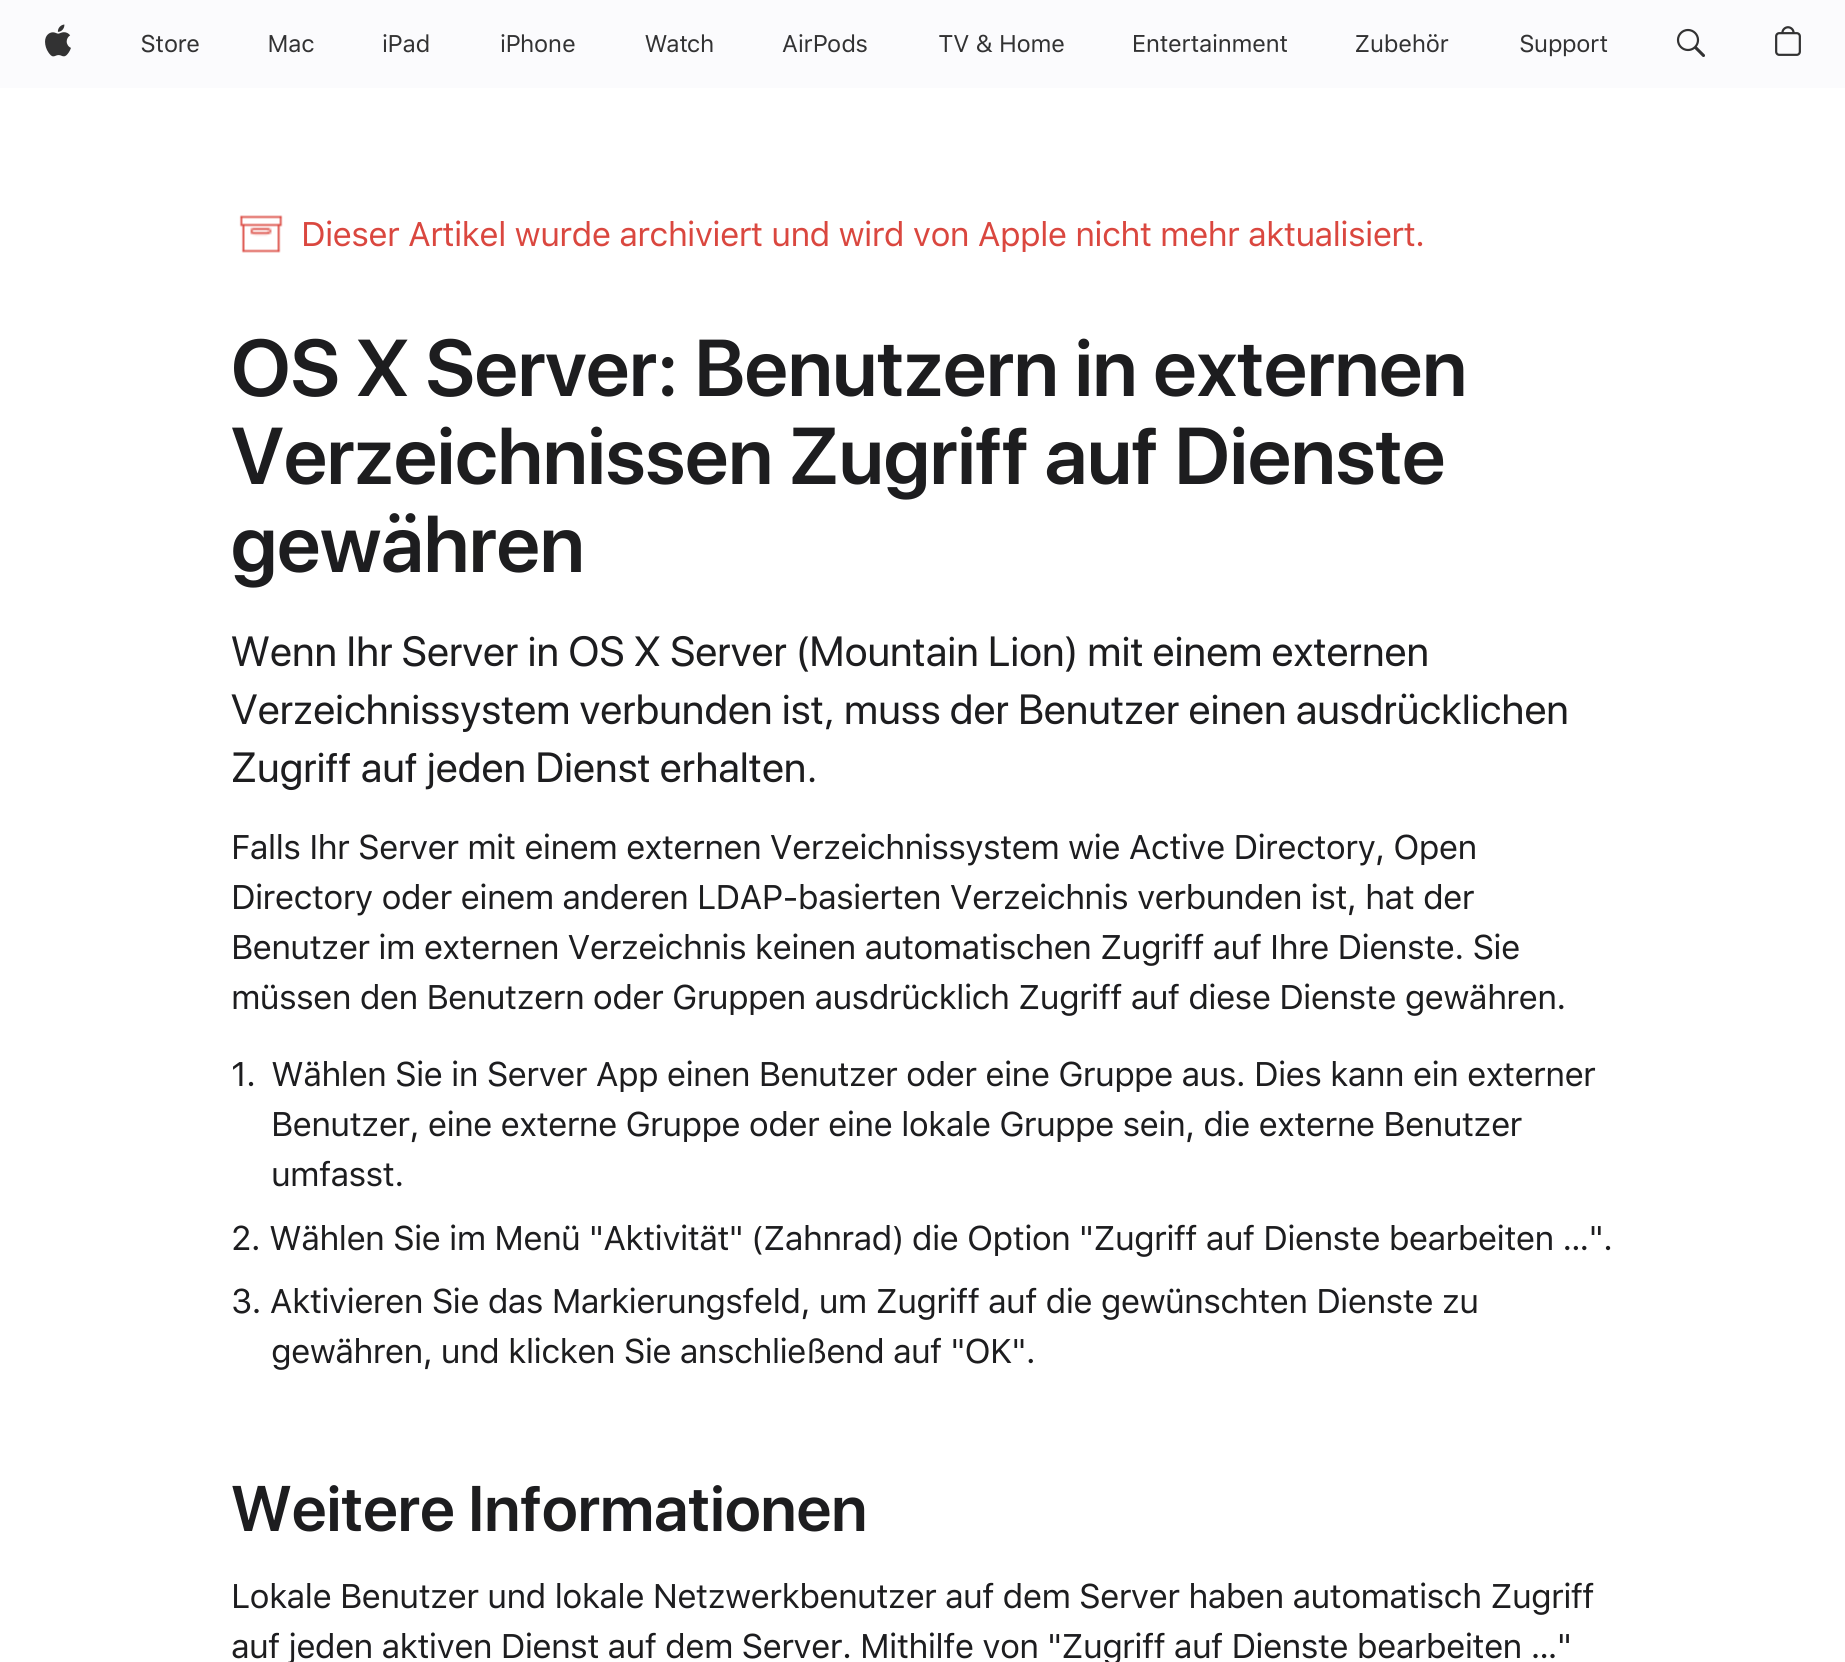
import math
import cairocffi as cairo

surface = cairo.ImageSurface(cairo.FORMAT_RGB24, 1845, 1662)
ctx = cairo.Context(surface)
options = cairo.FontOptions()
options.set_hint_metrics(cairo.HINT_METRICS_OFF)
options.set_hint_style(cairo.HINT_STYLE_NONE)
ctx.set_font_options(options)
ctx.set_miter_limit(4)


def rgb(r, g, b):
    ctx.set_source_rgb(r / 255, g / 255, b / 255)


def face(family, size, italic, bold):
    ctx.select_font_face(family, cairo.FONT_SLANT_ITALIC if italic else cairo.FONT_SLANT_NORMAL, cairo.FONT_WEIGHT_BOLD if bold else cairo.FONT_WEIGHT_NORMAL)
    ctx.set_font_size(size)


def label(x, y, s):
    ctx.move_to(x, y)
    ctx.show_text(s)


def tracked(x, y, s, letter, word):
    ctx.move_to(x, y)
    for ch in s:
        ctx.show_text(ch)
        ctx.rel_move_to(letter + word * (ch == ' '), 0)


def rect(x, y, w, h):
    ctx.rectangle(x, y, w, h)
    ctx.fill()


def image(path, x, y, w, h):
    ctx.save()
    ctx.set_source_surface(cairo.ImageSurface.create_from_png(path), x, y)
    ctx.rectangle(x, y, w, h)
    ctx.fill()
    ctx.restore()


rgb(255, 255, 255)
ctx.paint()
rgb(251, 251, 253)
rect(0, 0, 1845, 88)
image('image0.png', 45, 24, 26, 33)
image('image1.png', 141, 34, 58, 19)
image('image2.png', 269, 35, 45, 18)
image('image3.png', 383, 34, 46, 19)
image('image4.png', 501, 34, 74, 19)
image('image5.png', 645, 34, 68, 19)
image('image6.png', 782, 34, 85, 19)
image('image7.png', 939, 34, 125, 19)
image('image8.png', 1134, 34, 153, 19)
image('image9.png', 1356, 34, 93, 19)
image('image10.png', 1520, 34, 88, 23)
image('image11.png', 1676, 28, 29, 29)
image('image12.png', 1775, 26, 26, 30)
image('image13.png', 239, 215, 44, 38)
face('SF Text', 34, 0, 0)
rgb(218, 71, 63)
tracked(301, 246, 'Dieser Artikel wurde archiviert und wird von Apple nicht mehr aktualisiert.', -0.75, 0)
face('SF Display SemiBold', 80, 0, 0)
rgb(29, 29, 31)
label(231, 396, 'OS X Server: Benutzern in externen')
label(231, 484, 'Verzeichnissen Zugriff auf Dienste')
label(231, 572, 'gewähren')
face('SF Display', 42, 0, 0)
tracked(231, 666, 'Wenn Ihr Server in OS X Server (Mountain Lion) mit einem externen', 0.45, 0)
tracked(231, 724, 'Verzeichnissystem verbunden ist, muss der Benutzer einen ausdrücklichen', 0.45, 0)
tracked(231, 782, 'Zugriff auf jeden Dienst erhalten.', 0.45, 0)
face('SF Text', 34, 0, 0)
tracked(231, 859, 'Falls Ihr Server mit einem externen Verzeichnissystem wie Active Directory, Open', -0.75, 0)
tracked(231, 909, 'Directory oder einem anderen LDAP-basierten Verzeichnis verbunden ist, hat der', -0.75, 0)
tracked(231, 959, 'Benutzer im externen Verzeichnis keinen automatischen Zugriff auf Ihre Dienste. Sie', -0.75, 0)
tracked(231, 1009, 'müssen den Benutzern oder Gruppen ausdrücklich Zugriff auf diese Dienste gewähren.', -0.75, 0)
tracked(231, 1086, '1.', -0.75, 0)
tracked(271, 1086, 'Wählen Sie in Server App einen Benutzer oder eine Gruppe aus. Dies kann ein externer', -0.75, 0)
tracked(271, 1136, 'Benutzer, eine externe Gruppe oder eine lokale Gruppe sein, die externe Benutzer', -0.75, 0)
tracked(271, 1186, 'umfasst.', -0.75, 0)
tracked(231, 1250, '2. Wählen Sie im Menü "Aktivität" (Zahnrad) die Option "Zugriff auf Dienste bearbeiten …".', -0.75, 0)
tracked(231, 1313, '3. Aktivieren Sie das Markierungsfeld, um Zugriff auf die gewünschten Dienste zu', -0.75, 0)
tracked(271, 1363, 'gewähren, und klicken Sie anschließend auf "OK".', -0.75, 0)
face('SF Display SemiBold', 64, 0, 0)
tracked(231, 1531, 'Weitere Informationen', 0.25, 0)
face('SF Text', 34, 0, 0)
tracked(231, 1608, 'Lokale Benutzer und lokale Netzwerkbenutzer auf dem Server haben automatisch Zugriff', -0.75, 0)
tracked(231, 1658, 'auf jeden aktiven Dienst auf dem Server. Mithilfe von "Zugriff auf Dienste bearbeiten …"', -0.75, 0)
surface.write_to_png('render.png')
